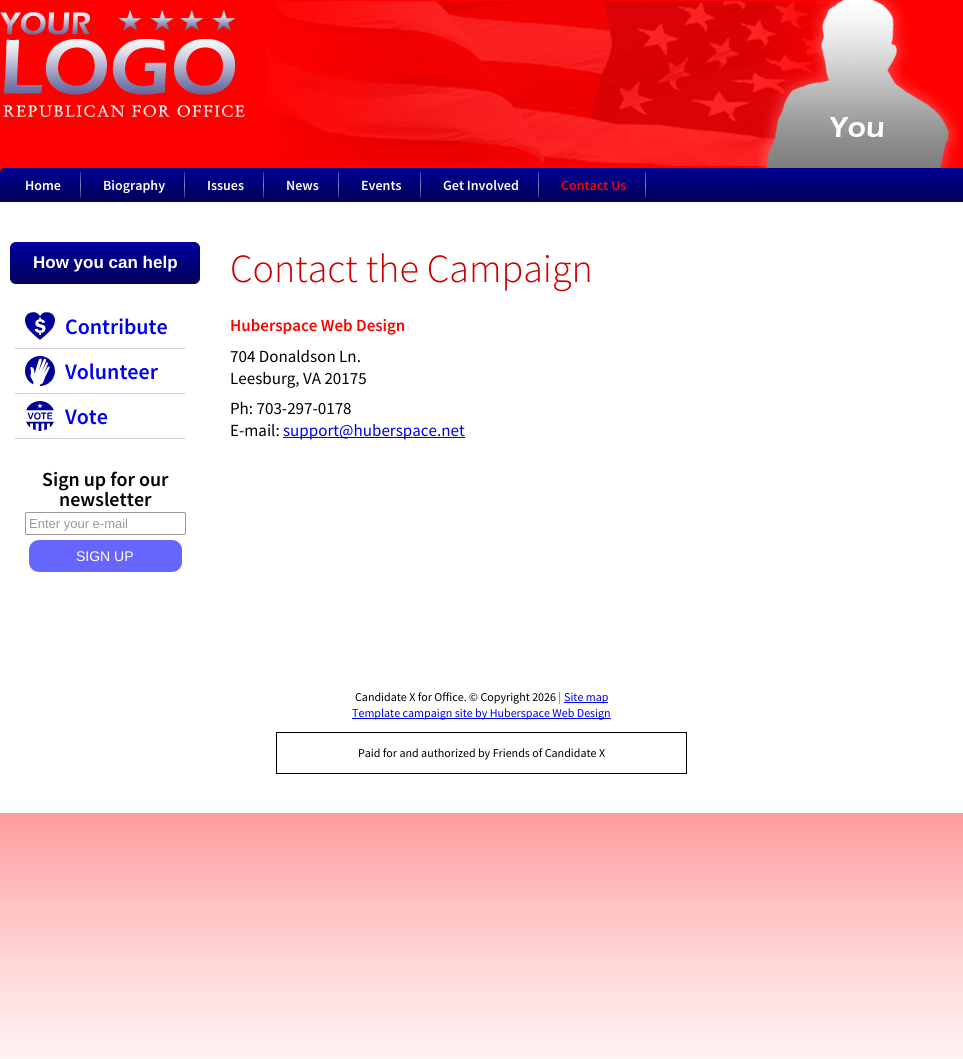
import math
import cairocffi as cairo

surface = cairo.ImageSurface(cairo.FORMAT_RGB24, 963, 1059)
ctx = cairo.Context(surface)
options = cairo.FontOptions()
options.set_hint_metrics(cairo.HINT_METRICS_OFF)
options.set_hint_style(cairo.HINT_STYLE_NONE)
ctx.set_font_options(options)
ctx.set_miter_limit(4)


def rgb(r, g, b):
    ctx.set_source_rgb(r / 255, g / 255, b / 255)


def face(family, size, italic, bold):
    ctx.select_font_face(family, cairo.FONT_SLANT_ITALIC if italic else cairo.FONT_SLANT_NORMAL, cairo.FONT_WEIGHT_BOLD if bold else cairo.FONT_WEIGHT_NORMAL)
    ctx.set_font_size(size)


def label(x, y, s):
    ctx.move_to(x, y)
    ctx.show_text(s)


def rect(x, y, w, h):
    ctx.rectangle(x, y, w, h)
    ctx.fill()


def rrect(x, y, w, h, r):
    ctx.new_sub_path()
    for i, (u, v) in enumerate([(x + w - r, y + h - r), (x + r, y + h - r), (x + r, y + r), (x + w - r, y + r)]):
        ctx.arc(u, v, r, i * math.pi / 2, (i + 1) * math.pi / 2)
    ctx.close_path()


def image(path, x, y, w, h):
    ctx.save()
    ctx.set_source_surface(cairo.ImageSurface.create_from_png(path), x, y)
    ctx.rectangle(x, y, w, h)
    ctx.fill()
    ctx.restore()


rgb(255, 0, 0)
ctx.paint()
image('image0.png', 0, 813, 963, 246)
image('image1.png', 266, 1, 570, 165)
image('image2.png', 0, 10, 245, 108)
image('image3.png', 757, 0, 202, 168)
rgb(0, 0, 153)
ctx.new_path()
ctx.move_to(5, 168)
ctx.line_to(963, 168)
ctx.curve_to(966, 168, 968, 170, 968, 173)
ctx.line_to(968, 202)
ctx.line_to(0, 202)
ctx.line_to(0, 173)
ctx.curve_to(0, 170, 2, 168, 5, 168)
ctx.close_path()
ctx.fill()
image('image4.png', 0, 168, 963, 34)
image('image5.png', 80, 172, 1, 26)
face('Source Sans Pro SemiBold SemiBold', 14, 0, 0)
rgb(255, 255, 255)
label(25, 190, 'Home')
image('image5.png', 184, 172, 1, 26)
label(103, 190, 'Biography')
image('image5.png', 263, 172, 1, 26)
label(207, 190, 'Issues')
image('image5.png', 338, 172, 1, 26)
label(286, 190, 'News')
image('image5.png', 420, 172, 1, 26)
label(361, 190, 'Events')
image('image5.png', 538, 172, 1, 26)
label(443, 190, 'Get Involved')
image('image5.png', 645, 172, 1, 26)
rgb(255, 0, 0)
label(561, 190, 'Contact Us')
rgb(255, 255, 255)
rect(0, 202, 963, 611)
rgb(0, 0, 153)
rrect(10, 242, 190, 42, 6)
ctx.fill()
image('image6.png', 10, 247, 190, 37)
face('Liberation Sans', 17, 0, 1)
rgb(255, 255, 255)
label(33, 268, 'How you can help')
rgb(204, 204, 204)
rect(15, 348, 170, 1)
image('image7.png', 25, 312, 30, 28)
face('Source Sans Pro SemiBold SemiBold', 22, 0, 0)
rgb(0, 0, 238)
label(65, 334, 'Contribute')
rgb(204, 204, 204)
rect(15, 393, 170, 1)
image('image8.png', 25, 356, 30, 30)
rgb(0, 0, 238)
label(65, 379, 'Volunteer')
rgb(204, 204, 204)
rect(15, 438, 170, 1)
image('image9.png', 26, 401, 28, 30)
rgb(0, 0, 238)
label(65, 424, 'Vote')
face('Source Sans Pro SemiBold SemiBold', 20, 0, 0)
rgb(0, 0, 0)
label(42, 486, 'Sign up for our')
label(59, 506, 'newsletter')
rrect(25.5, 512.5, 160, 22, 1.5)
rgb(153, 153, 153)
ctx.set_line_width(1)
ctx.stroke()
face('Liberation Sans', 13, 0, 0)
label(29, 528, 'Enter your e-mail')
rgb(102, 102, 255)
rrect(29, 540, 153, 32, 10)
ctx.fill()
face('Liberation Sans', 14, 0, 0)
rgb(255, 255, 255)
label(76, 561, 'SIGN UP')
face('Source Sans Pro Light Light', 40, 0, 0)
rgb(204, 0, 0)
label(230, 282, 'Contact the Campaign')
face('Source Sans Pro SemiBold SemiBold', 17, 0, 0)
rgb(255, 0, 0)
label(230, 331, 'Huberspace Web Design')
face('Source Sans Pro', 17, 0, 0)
rgb(0, 0, 0)
label(230, 362, '704 Donaldson Ln.')
label(230, 384, 'Leesburg, VA 20175')
label(230, 414, 'Ph: 703-297-0178')
label(230, 436, 'E-mail:')
rgb(0, 0, 238)
rect(283, 437, 182, 1)
label(283, 436, 'support@huberspace.net')
face('Source Sans Pro', 12, 0, 0)
rgb(0, 0, 0)
label(355, 701, 'Candidate X for Office. © Copyright 2026 |')
rgb(0, 0, 238)
rect(564, 702, 44, 1)
label(564, 701, 'Site map')
rect(352, 718, 259, 1)
label(352, 717, 'Template campaign site by Huberspace Web Design')
ctx.rectangle(276.5, 732.5, 410, 41)
rgb(0, 0, 0)
ctx.stroke()
label(358, 757, 'Paid for and authorized by Friends of Candidate X')
surface.write_to_png('render.png')
